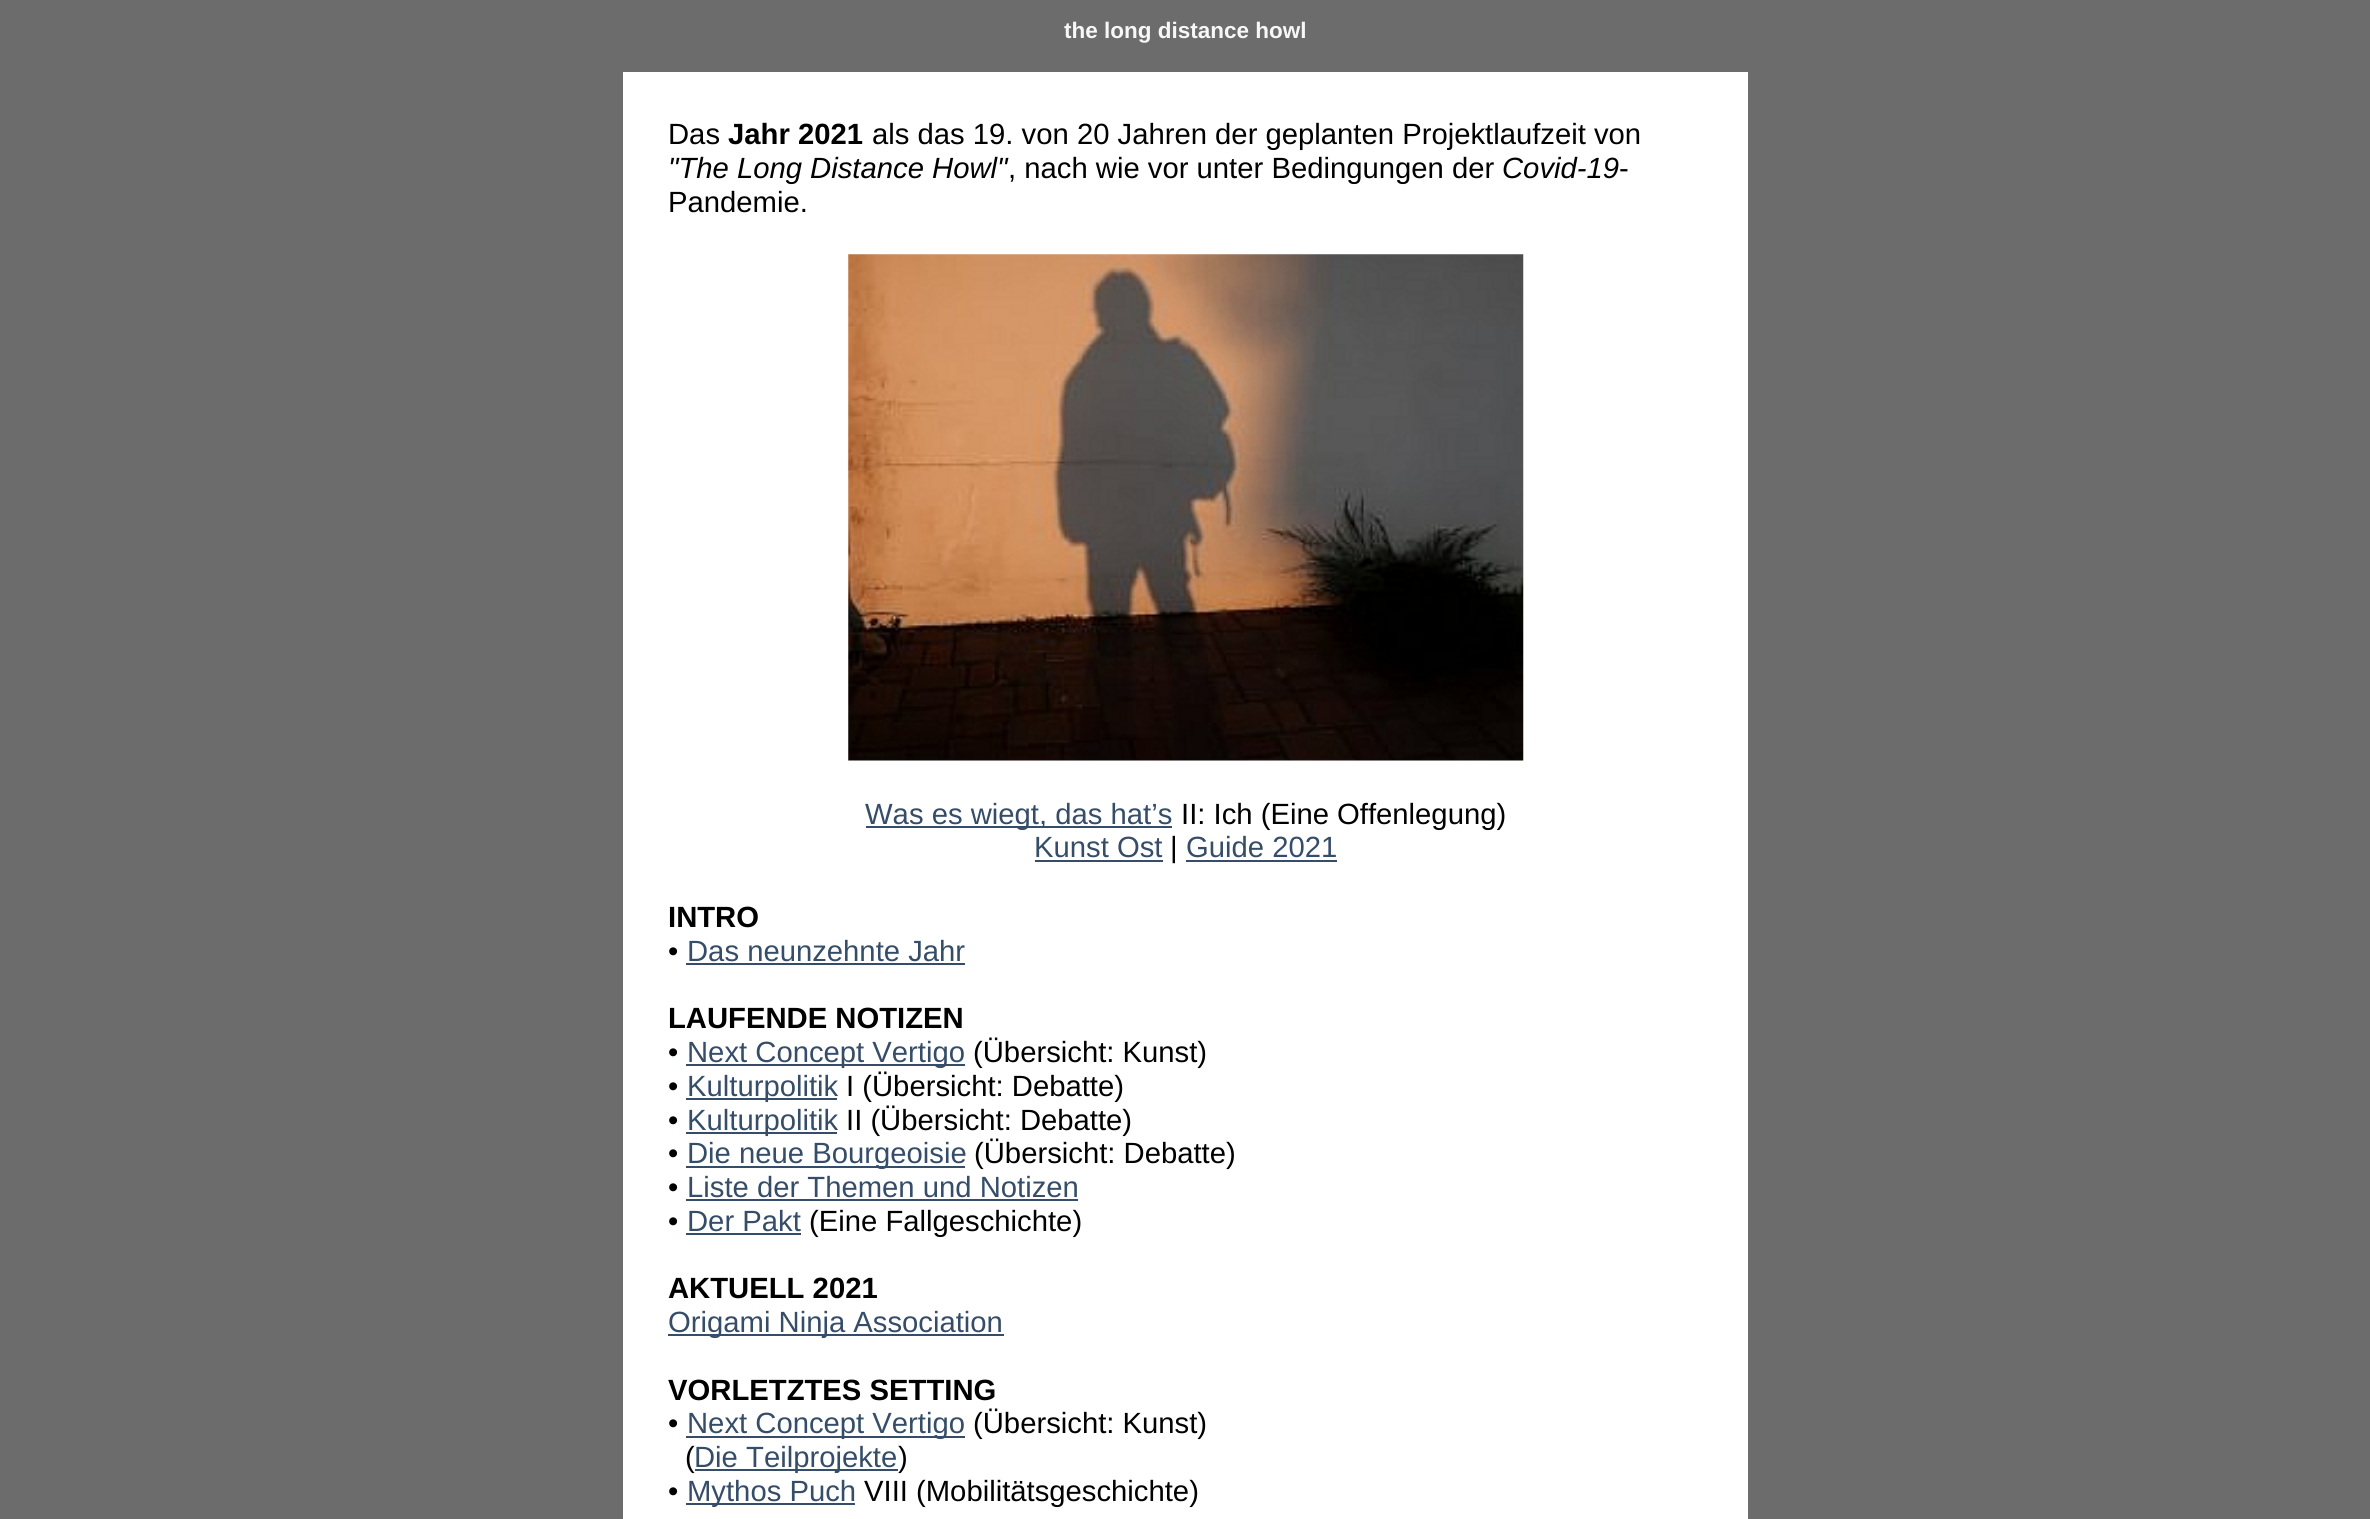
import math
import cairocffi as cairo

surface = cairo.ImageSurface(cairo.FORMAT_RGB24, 2370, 1519)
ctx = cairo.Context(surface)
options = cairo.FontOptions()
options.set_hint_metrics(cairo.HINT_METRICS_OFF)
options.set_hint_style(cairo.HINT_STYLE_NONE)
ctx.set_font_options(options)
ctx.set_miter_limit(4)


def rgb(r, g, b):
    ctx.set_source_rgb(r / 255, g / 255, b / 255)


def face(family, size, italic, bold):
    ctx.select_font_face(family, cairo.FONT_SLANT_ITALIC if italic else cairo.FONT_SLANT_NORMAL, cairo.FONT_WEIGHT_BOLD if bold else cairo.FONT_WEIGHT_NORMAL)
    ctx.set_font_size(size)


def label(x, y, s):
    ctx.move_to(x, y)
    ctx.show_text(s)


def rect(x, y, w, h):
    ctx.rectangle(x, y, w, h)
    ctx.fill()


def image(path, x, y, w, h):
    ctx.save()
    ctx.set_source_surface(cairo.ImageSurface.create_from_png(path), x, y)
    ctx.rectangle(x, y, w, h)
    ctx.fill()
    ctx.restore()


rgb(108, 108, 108)
ctx.paint()
face('Liberation Sans', 22.5, 0, 1)
rgb(247, 247, 247)
label(1064, 38, 'the long distance howl')
rgb(255, 255, 255)
rect(623, 72, 1125, 1447)
face('Liberation Sans', 29.25, 0, 0)
rgb(0, 0, 0)
label(668, 144, 'Das')
face('Liberation Sans', 29.25, 0, 1)
label(728, 144, 'Jahr 2021')
face('Liberation Sans', 29.25, 0, 0)
label(872, 144, 'als das 19. von 20 Jahren der geplanten Projektlaufzeit von')
face('Liberation Sans', 29.25, 1, 0)
label(668, 178, '"The Long Distance Howl"')
face('Liberation Sans', 29.25, 0, 0)
label(1008, 178, ', nach wie vor unter Bedingungen der')
face('Liberation Sans', 29.25, 1, 0)
label(1502, 178, 'Covid-19')
face('Liberation Sans', 29.25, 0, 0)
label(1619, 178, '-')
label(668, 212, 'Pandemie.')
image('image0.png', 848, 254, 676, 507)
rgb(53, 77, 104)
rect(866, 826, 306, 2)
label(865, 824, 'Was es wiegt, das hat’s')
rgb(0, 0, 0)
label(1181, 824, 'II: Ich (Eine Offenlegung)')
rgb(53, 77, 104)
label(1034, 857, 'Kunst Ost')
rect(1035, 860, 128, 2)
rgb(0, 0, 0)
label(1170, 857, '|')
rgb(53, 77, 104)
label(1186, 857, 'Guide 2021')
rect(1186, 860, 151, 2)
face('Liberation Sans', 29.25, 0, 1)
rgb(0, 0, 0)
label(668, 927, 'INTRO')
face('Liberation Sans', 29.25, 0, 0)
label(668, 961, '•')
rgb(53, 77, 104)
label(687, 961, 'Das neunzehnte Jahr')
rect(686, 963, 279, 2)
face('Liberation Sans', 29.25, 0, 1)
rgb(0, 0, 0)
label(668, 1028, 'LAUFENDE NOTIZEN')
face('Liberation Sans', 29.25, 0, 0)
label(668, 1062, '•')
rgb(53, 77, 104)
rect(686, 1064, 279, 2)
label(687, 1062, 'Next Concept Vertigo')
rgb(0, 0, 0)
label(973, 1062, '(Übersicht: Kunst)')
label(668, 1096, '•')
rgb(53, 77, 104)
rect(686, 1098, 151, 2)
label(687, 1096, 'Kulturpolitik')
rgb(0, 0, 0)
label(846, 1096, 'I (Übersicht: Debatte)')
label(668, 1130, '•')
rgb(53, 77, 104)
rect(686, 1132, 151, 2)
label(687, 1130, 'Kulturpolitik')
rgb(0, 0, 0)
label(846, 1130, 'II (Übersicht: Debatte)')
label(668, 1163, '•')
rgb(53, 77, 104)
rect(686, 1166, 279, 2)
label(687, 1163, 'Die neue Bourgeoisie')
rgb(0, 0, 0)
label(974, 1163, '(Übersicht: Debatte)')
label(668, 1197, '•')
rgb(53, 77, 104)
label(687, 1197, 'Liste der Themen und Notizen')
rect(686, 1199, 392, 2)
rgb(0, 0, 0)
label(668, 1231, '•')
rgb(53, 77, 104)
label(687, 1231, 'Der Pakt')
rect(686, 1233, 115, 2)
rgb(0, 0, 0)
label(809, 1231, '(Eine Fallgeschichte)')
face('Liberation Sans', 29.25, 0, 1)
label(668, 1298, 'AKTUELL 2021')
rgb(53, 77, 104)
rect(668, 1334, 336, 2)
face('Liberation Sans', 29.25, 0, 0)
label(668, 1332, 'Origami Ninja Association')
face('Liberation Sans', 29.25, 0, 1)
rgb(0, 0, 0)
label(668, 1400, 'VORLETZTES SETTING')
face('Liberation Sans', 29.25, 0, 0)
label(668, 1433, '•')
rgb(53, 77, 104)
rect(686, 1436, 279, 2)
label(687, 1433, 'Next Concept Vertigo')
rgb(0, 0, 0)
label(973, 1433, '(Übersicht: Kunst)')
label(685, 1467, '(')
rgb(53, 77, 104)
rect(695, 1469, 203, 2)
label(694, 1467, 'Die Teilprojekte')
rgb(0, 0, 0)
label(898, 1467, ')')
label(668, 1501, '•')
rgb(53, 77, 104)
rect(686, 1503, 169, 2)
label(687, 1501, 'Mythos Puch')
rgb(0, 0, 0)
label(864, 1501, 'VIII (Mobilitätsgeschichte)')
surface.write_to_png('render.png')
